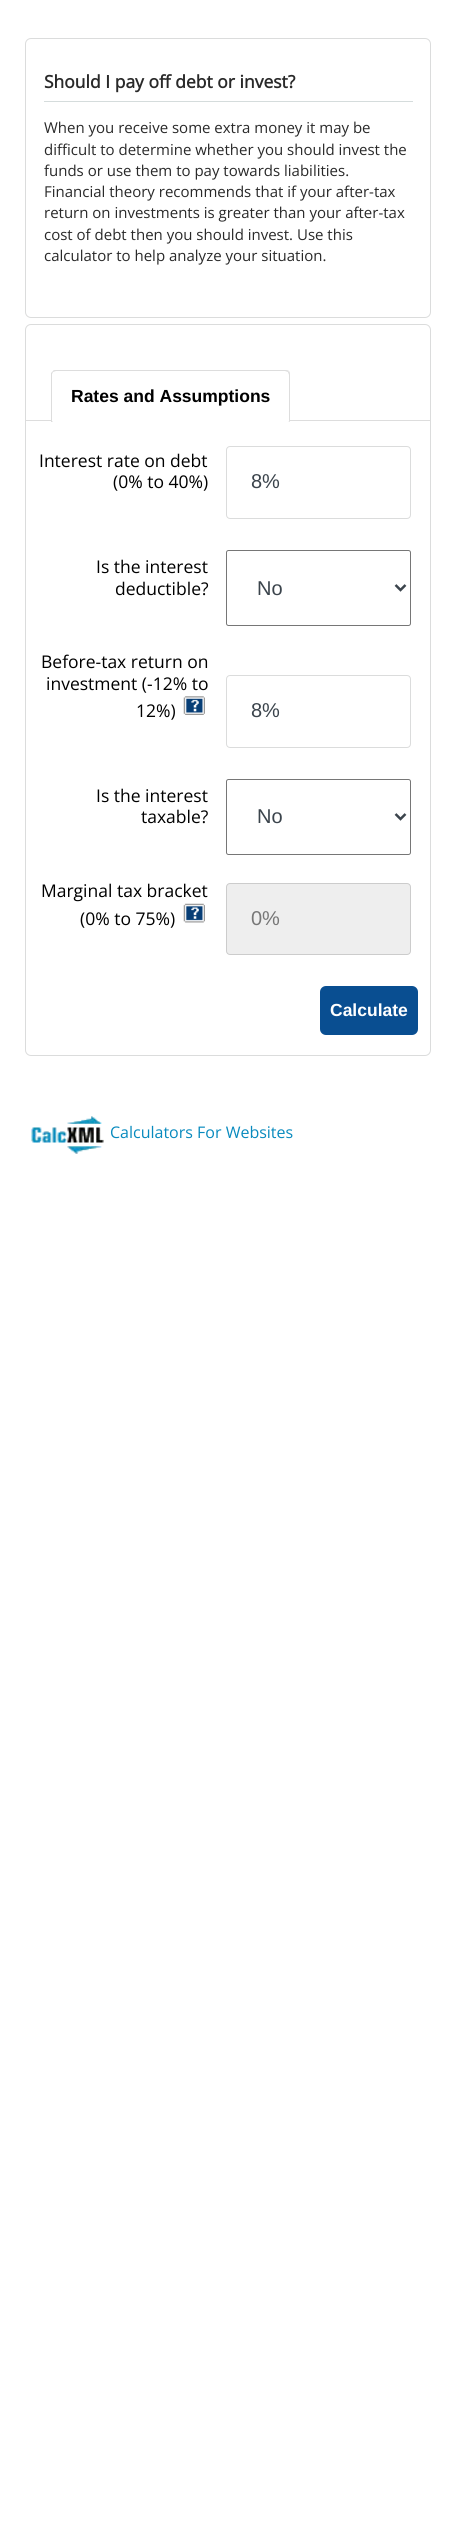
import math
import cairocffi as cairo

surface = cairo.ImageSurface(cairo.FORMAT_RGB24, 456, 2537)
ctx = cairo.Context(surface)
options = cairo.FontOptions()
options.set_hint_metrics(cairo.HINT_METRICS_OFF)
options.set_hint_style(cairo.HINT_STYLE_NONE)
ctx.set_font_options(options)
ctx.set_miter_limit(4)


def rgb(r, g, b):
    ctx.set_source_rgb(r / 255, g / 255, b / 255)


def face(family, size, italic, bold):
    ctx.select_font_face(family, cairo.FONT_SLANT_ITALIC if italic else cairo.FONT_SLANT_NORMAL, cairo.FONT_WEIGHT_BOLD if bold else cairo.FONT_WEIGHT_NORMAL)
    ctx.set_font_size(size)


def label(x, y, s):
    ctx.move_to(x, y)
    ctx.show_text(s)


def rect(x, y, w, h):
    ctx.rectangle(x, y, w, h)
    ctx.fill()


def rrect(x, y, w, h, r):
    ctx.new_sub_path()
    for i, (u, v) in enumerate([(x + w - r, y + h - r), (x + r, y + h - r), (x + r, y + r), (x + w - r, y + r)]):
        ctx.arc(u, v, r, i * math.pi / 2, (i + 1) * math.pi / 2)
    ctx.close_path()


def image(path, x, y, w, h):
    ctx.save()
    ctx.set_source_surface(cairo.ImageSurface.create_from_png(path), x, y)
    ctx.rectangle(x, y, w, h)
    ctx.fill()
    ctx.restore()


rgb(255, 255, 255)
ctx.paint()
rrect(25.5, 38.5, 405, 279, 5.5)
rgb(219, 220, 220)
ctx.set_line_width(1)
ctx.stroke()
rgb(213, 220, 220)
rect(44, 101, 369, 1)
face('Open Sans', 17.5, 0, 1)
rgb(41, 41, 41)
label(44, 88, 'Should I pay off debt or invest?')
face('Open Sans', 15, 0, 0)
label(44, 133, 'When you receive some extra money it may be')
label(44, 155, 'difficult to determine whether you should invest the')
label(44, 176, 'funds or use them to pay towards liabilities.')
label(44, 197, 'Financial theory recommends that if your after-tax')
label(44, 218, 'return on investments is greater than your after-tax')
label(44, 240, 'cost of debt then you should invest. Use this')
label(44, 261, 'calculator to help analyze your situation.')
rrect(25.5, 324.5, 405, 731, 5.5)
rgb(219, 220, 220)
ctx.stroke()
rgb(221, 221, 221)
rect(26, 420, 404, 1)
rgb(255, 255, 255)
ctx.new_path()
ctx.move_to(56, 370)
ctx.line_to(285, 370)
ctx.curve_to(288, 370, 290, 372, 290, 375)
ctx.line_to(290, 423)
ctx.line_to(51, 423)
ctx.line_to(51, 375)
ctx.curve_to(51, 372, 53, 370, 56, 370)
ctx.close_path()
ctx.fill()
rgb(221, 221, 221)
ctx.new_path()
ctx.move_to(56, 370)
ctx.curve_to(55, 370, 53, 370, 53, 371)
ctx.line_to(53, 372)
ctx.line_to(56, 371)
ctx.line_to(285, 371)
ctx.line_to(288, 372)
ctx.line_to(289, 371)
ctx.curve_to(288, 370, 286, 370, 285, 370)
ctx.close_path()
ctx.fill()
ctx.new_path()
ctx.move_to(290, 422)
ctx.line_to(290, 375)
ctx.curve_to(290, 374, 290, 372, 289, 371)
ctx.line_to(288, 372)
ctx.curve_to(288, 373, 289, 374, 289, 375)
ctx.line_to(289, 421)
ctx.line_to(288, 421)
ctx.close_path()
ctx.fill()
ctx.new_path()
ctx.move_to(51, 373)
ctx.line_to(53, 371)
ctx.line_to(53, 372)
ctx.line_to(52, 374)
ctx.line_to(52, 421)
ctx.line_to(53, 421)
ctx.line_to(52, 422)
ctx.line_to(51, 422)
ctx.close_path()
ctx.fill()
face('Liberation Sans', 17.5, 0, 1)
rgb(0, 0, 0)
label(71, 402, 'Rates and Assumptions')
face('Open Sans', 17.5, 0, 0)
label(39, 467, 'Interest rate on debt')
label(113, 488, '(0% to 40%)')
rrect(226.5, 446.5, 184, 72, 3.5)
rgb(219, 220, 220)
ctx.stroke()
face('Liberation Sans', 20, 0, 0)
rgb(59, 68, 76)
label(251, 488, '8%')
face('Open Sans', 17.5, 0, 0)
rgb(0, 0, 0)
label(96, 573, 'Is the interest')
label(115, 595, 'deductible?')
rrect(226.5, 550.5, 184, 75, 2)
rgb(118, 118, 118)
ctx.stroke()
ctx.new_path()
ctx.move_to(395.5, 585)
ctx.line_to(400.5, 590)
ctx.line_to(405.5, 585)
rgb(59, 68, 76)
ctx.set_line_width(2.5)
ctx.stroke()
face('Liberation Sans', 20, 0, 0)
label(257, 595, 'No')
face('Open Sans', 17.5, 0, 0)
rgb(0, 0, 0)
label(41, 668, 'Before-tax return on')
label(46, 690, 'investment (-12% to')
label(136, 717, '12%)')
image('image0.png', 183, 696, 22, 19)
rrect(226.5, 675.5, 184, 72, 3.5)
rgb(219, 220, 220)
ctx.set_line_width(1)
ctx.stroke()
face('Liberation Sans', 20, 0, 0)
rgb(59, 68, 76)
label(251, 717, '8%')
face('Open Sans', 17.5, 0, 0)
rgb(0, 0, 0)
label(96, 802, 'Is the interest')
label(141, 823, 'taxable?')
rrect(226.5, 779.5, 184, 75, 2)
rgb(118, 118, 118)
ctx.stroke()
ctx.new_path()
ctx.move_to(395.5, 814)
ctx.line_to(400.5, 819)
ctx.line_to(405.5, 814)
rgb(59, 68, 76)
ctx.set_line_width(2.5)
ctx.stroke()
face('Liberation Sans', 20, 0, 0)
label(257, 823, 'No')
face('Open Sans', 17.5, 0, 0)
rgb(0, 0, 0)
label(41, 897, 'Marginal tax bracket')
label(80, 925, '(0% to 75%)')
image('image1.png', 183, 903, 22, 20)
rgb(238, 238, 238)
rrect(226.5, 883.5, 184, 71, 3.5)
ctx.fill_preserve()
rgb(204, 204, 204)
ctx.set_line_width(1)
ctx.stroke()
face('Liberation Sans', 20, 0, 0)
rgb(119, 119, 119)
label(251, 925, '0%')
rgb(9, 78, 145)
rrect(320, 986, 98, 49, 6)
ctx.fill()
face('Liberation Sans', 17.5, 0, 1)
rgb(255, 255, 255)
label(330, 1016, 'Calculate')
image('image2.png', 31, 1116, 73, 38)
face('Open Sans', 16, 0, 0)
rgb(8, 138, 190)
label(110, 1138, 'Calculators For Websites')
surface.write_to_png('render.png')
